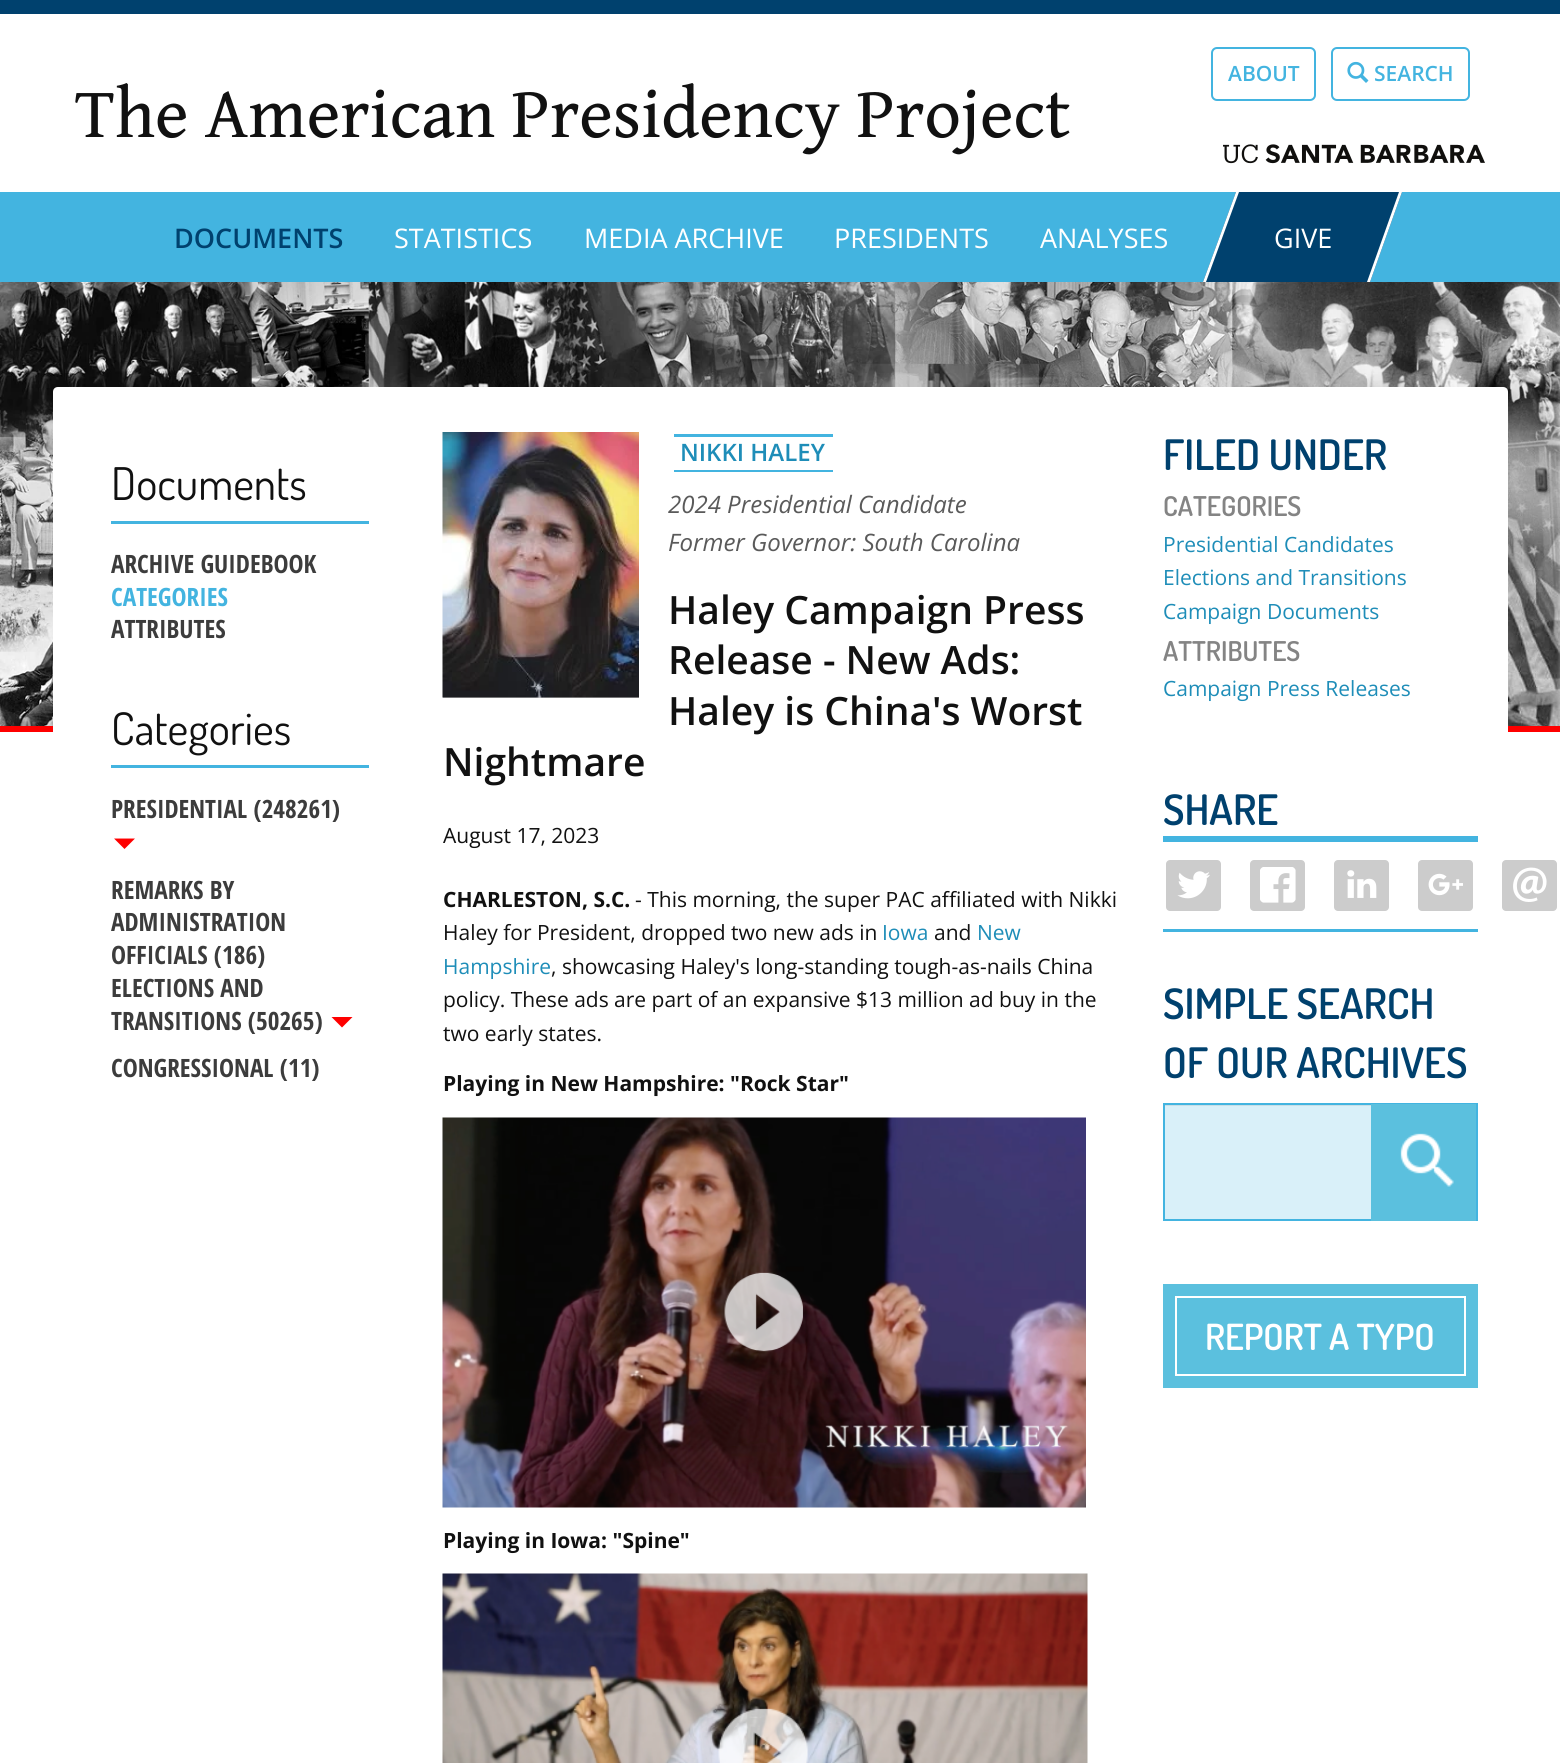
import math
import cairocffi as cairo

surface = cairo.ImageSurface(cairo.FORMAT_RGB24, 1560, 1763)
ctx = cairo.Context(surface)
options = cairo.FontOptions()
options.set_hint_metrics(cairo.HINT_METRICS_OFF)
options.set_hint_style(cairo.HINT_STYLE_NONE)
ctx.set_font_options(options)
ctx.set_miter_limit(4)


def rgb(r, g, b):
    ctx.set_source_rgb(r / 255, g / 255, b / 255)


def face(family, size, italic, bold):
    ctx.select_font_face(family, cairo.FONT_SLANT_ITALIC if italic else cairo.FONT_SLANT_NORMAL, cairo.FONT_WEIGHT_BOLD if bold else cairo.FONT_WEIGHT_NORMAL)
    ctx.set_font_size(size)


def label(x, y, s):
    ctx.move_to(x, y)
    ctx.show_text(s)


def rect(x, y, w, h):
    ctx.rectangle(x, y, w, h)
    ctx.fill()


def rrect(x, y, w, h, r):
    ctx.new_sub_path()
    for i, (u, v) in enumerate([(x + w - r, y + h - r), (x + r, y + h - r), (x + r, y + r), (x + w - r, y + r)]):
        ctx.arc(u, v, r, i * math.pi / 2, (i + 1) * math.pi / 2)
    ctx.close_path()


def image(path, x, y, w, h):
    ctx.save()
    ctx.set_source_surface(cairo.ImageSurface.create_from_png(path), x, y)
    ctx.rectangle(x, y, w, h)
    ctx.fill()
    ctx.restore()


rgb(255, 255, 255)
ctx.paint()
rgb(0, 65, 110)
rect(0, 0, 1560, 14)
rrect(1212, 48, 103, 52, 5)
rgb(67, 180, 224)
ctx.stroke()
face('Open Sans SemiBold', 21, 0, 0)
label(1228, 81, 'ABOUT')
rrect(1332, 48, 137, 52, 5)
ctx.stroke()
image('image0.png', 1347, 61, 22, 22)
label(1374, 81, 'SEARCH')
image('image1.png', 1223, 144, 262, 20)
face('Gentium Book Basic', 71.4, 0, 0)
rgb(17, 17, 17)
label(75, 137, 'The American Presidency Project')
rgb(67, 180, 224)
rect(0, 192, 1560, 90)
face('Open Sans SemiBold', 27, 0, 0)
rgb(0, 65, 110)
label(174, 248, 'DOCUMENTS')
face('Open Sans', 27, 0, 0)
rgb(255, 255, 255)
label(394, 248, 'STATISTICS')
label(584, 248, 'MEDIA ARCHIVE')
label(834, 248, 'PRESIDENTS')
label(1040, 248, 'ANALYSES')
rgb(0, 65, 110)
ctx.new_path()
ctx.move_to(1236, 192)
ctx.line_to(1402, 192)
ctx.line_to(1370, 282)
ctx.line_to(1203, 282)
ctx.close_path()
ctx.fill()
rgb(255, 255, 255)
ctx.new_path()
ctx.move_to(1399, 192)
ctx.line_to(1402, 192)
ctx.line_to(1370, 282)
ctx.line_to(1367, 282)
ctx.close_path()
ctx.fill()
ctx.new_path()
ctx.move_to(1236, 192)
ctx.line_to(1239, 192)
ctx.line_to(1206, 282)
ctx.line_to(1203, 282)
ctx.close_path()
ctx.fill()
label(1274, 248, 'GIVE')
image('image2.png', 0, 282, 1560, 444)
rgb(254, 0, 0)
rect(0, 726, 1560, 6)
rgb(255, 255, 255)
ctx.new_path()
ctx.move_to(58, 387)
ctx.line_to(1503, 387)
ctx.curve_to(1506, 387, 1508, 389, 1508, 392)
ctx.line_to(1508, 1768)
ctx.line_to(53, 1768)
ctx.line_to(53, 392)
ctx.curve_to(53, 389, 55, 387, 58, 387)
ctx.close_path()
ctx.fill()
rgb(67, 180, 224)
rect(111, 521, 258, 3)
face('Dosis', 45, 0, 0)
rgb(17, 17, 17)
label(111, 500, 'Documents')
face('Open Sans Condensed', 25.25, 0, 1)
rgb(60, 60, 60)
label(111, 573, 'ARCHIVE GUIDEBOOK')
rgb(67, 180, 224)
label(111, 606, 'CATEGORIES')
rgb(60, 60, 60)
label(111, 638, 'ATTRIBUTES')
rgb(67, 180, 224)
rect(111, 765, 258, 3)
face('Dosis', 45, 0, 0)
rgb(17, 17, 17)
label(111, 745, 'Categories')
face('Open Sans Condensed', 25.25, 0, 1)
rgb(60, 60, 60)
label(111, 818, 'PRESIDENTIAL (248261)')
rgb(254, 0, 0)
ctx.new_path()
ctx.move_to(114, 838.5)
ctx.line_to(135, 838.5)
ctx.line_to(124.5, 849)
ctx.close_path()
ctx.fill()
rgb(60, 60, 60)
label(111, 899, 'REMARKS BY')
label(111, 931, 'ADMINISTRATION')
label(111, 964, 'OFFICIALS (186)')
label(111, 997, 'ELECTIONS AND')
label(111, 1030, 'TRANSITIONS (50265)')
rgb(254, 0, 0)
ctx.new_path()
ctx.move_to(331.5, 1017)
ctx.line_to(352.5, 1017)
ctx.line_to(342, 1027.5)
ctx.close_path()
ctx.fill()
rgb(60, 60, 60)
label(111, 1077, 'CONGRESSIONAL (11)')
rgb(204, 204, 204)
rect(443, 697, 196, 1)
image('image3.png', 442, 432, 197, 266)
face('Open Sans SemiBold', 24, 0, 0)
rgb(30, 141, 184)
label(680, 461, 'NIKKI HALEY')
rgb(67, 180, 224)
rect(674, 434, 159, 3)
rect(674, 470, 159, 2)
face('Open Sans', 24, 1, 0)
rgb(90, 90, 90)
label(668, 513, '2024 Presidential Candidate')
label(668, 551, 'Former Governor: South Carolina')
face('Open Sans SemiBold', 39, 0, 0)
rgb(17, 17, 17)
label(668, 624, 'Haley Campaign Press')
label(668, 674, 'Release - New Ads:')
label(668, 725, 'Haley is China\'s Worst')
label(443, 776, 'Nightmare')
face('Open Sans', 21, 0, 0)
label(443, 843, 'August 17, 2023')
face('Open Sans', 21, 0, 1)
label(443, 907, 'CHARLESTON, S.C.')
face('Open Sans', 21, 0, 0)
label(635, 907, '- This morning, the super PAC affiliated with Nikki')
label(443, 940, 'Haley for President, dropped two new ads in')
rgb(30, 141, 184)
label(882, 940, 'Iowa')
rgb(17, 17, 17)
label(934, 940, 'and')
rgb(30, 141, 184)
label(977, 940, 'New')
label(443, 974, 'Hampshire')
rgb(17, 17, 17)
label(551, 974, ', showcasing Haley\'s long-standing tough-as-nails China')
label(443, 1007, 'policy. These ads are part of an expansive $13 million ad buy in the')
label(443, 1041, 'two early states.')
face('Open Sans', 21, 0, 1)
label(443, 1091, 'Playing in New Hampshire: "Rock Star"')
image('image4.png', 442, 1117, 644, 391)
label(443, 1548, 'Playing in Iowa: "Spine"')
image('image5.png', 442, 1573, 646, 190)
face('Dosis SemiBold', 42, 0, 0)
rgb(0, 65, 110)
label(1163, 470, 'FILED UNDER')
face('Dosis SemiBold', 27.25, 0, 0)
rgb(132, 132, 132)
label(1163, 516, 'CATEGORIES')
face('Open Sans', 21, 0, 0)
rgb(30, 141, 184)
label(1163, 552, 'Presidential Candidates')
label(1163, 585, 'Elections and Transitions')
label(1163, 619, 'Campaign Documents')
face('Dosis SemiBold', 27.25, 0, 0)
rgb(132, 132, 132)
label(1163, 661, 'ATTRIBUTES')
face('Open Sans', 21, 0, 0)
rgb(30, 141, 184)
label(1163, 696, 'Campaign Press Releases')
face('Dosis SemiBold', 42, 0, 0)
rgb(0, 65, 110)
label(1163, 825, 'SHARE')
rgb(67, 180, 224)
rect(1163, 836, 315, 6)
rect(1163, 929, 315, 3)
rgb(204, 204, 204)
rrect(1166, 860, 55, 51, 4)
ctx.fill()
image('image6.png', 1177, 871, 33, 28)
rrect(1250, 860, 55, 51, 4)
ctx.fill()
image('image7.png', 1260, 867, 36, 36)
rrect(1334, 860, 55, 51, 4)
ctx.fill()
image('image8.png', 1347, 870, 30, 28)
rrect(1418, 860, 55, 51, 4)
ctx.fill()
image('image9.png', 1428, 873, 35, 23)
rrect(1502, 860, 55, 51, 4)
ctx.fill()
image('image10.png', 1513, 867, 34, 35)
rgb(0, 65, 110)
label(1163, 1019, 'SIMPLE SEARCH')
label(1163, 1078, 'OF OUR ARCHIVES')
rgb(217, 240, 249)
rect(1165, 1106, 206, 113)
rgb(201, 222, 230)
rect(1164, 1105, 207, 1)
ctx.rectangle(1164, 1104, 313, 116)
rgb(67, 180, 224)
ctx.stroke()
rgb(91, 192, 222)
rect(1371, 1104, 105, 117)
image('image11.png', 1400, 1133, 54, 54)
rect(1163, 1284, 315, 104)
ctx.rectangle(1176, 1297, 289, 78)
rgb(255, 255, 255)
ctx.stroke()
face('Dosis SemiBold', 36, 0, 0)
label(1205, 1350, 'REPORT A TYPO')
surface.write_to_png('render.png')
